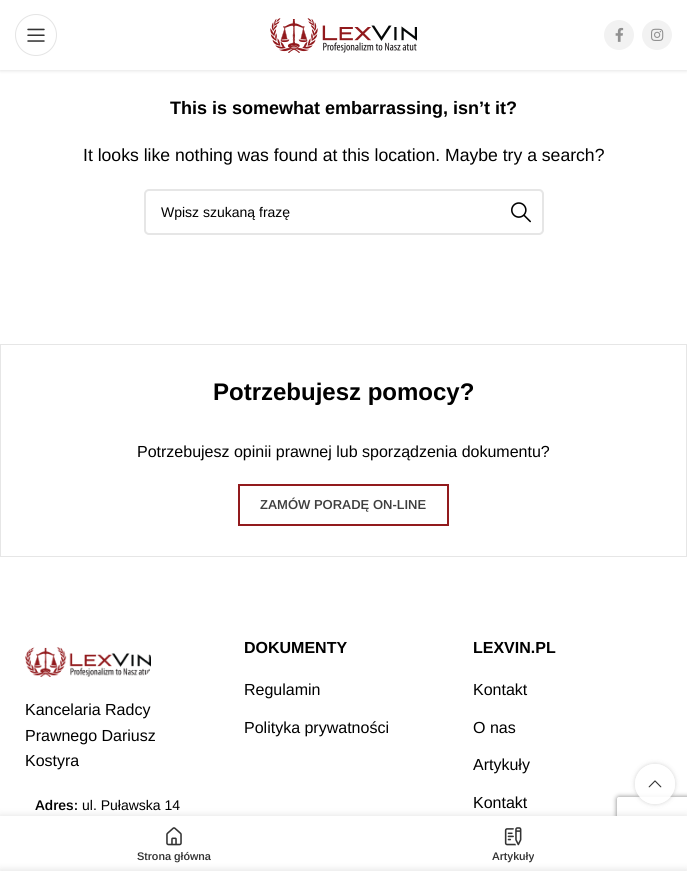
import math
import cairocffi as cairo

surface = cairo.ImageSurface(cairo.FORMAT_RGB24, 687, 871)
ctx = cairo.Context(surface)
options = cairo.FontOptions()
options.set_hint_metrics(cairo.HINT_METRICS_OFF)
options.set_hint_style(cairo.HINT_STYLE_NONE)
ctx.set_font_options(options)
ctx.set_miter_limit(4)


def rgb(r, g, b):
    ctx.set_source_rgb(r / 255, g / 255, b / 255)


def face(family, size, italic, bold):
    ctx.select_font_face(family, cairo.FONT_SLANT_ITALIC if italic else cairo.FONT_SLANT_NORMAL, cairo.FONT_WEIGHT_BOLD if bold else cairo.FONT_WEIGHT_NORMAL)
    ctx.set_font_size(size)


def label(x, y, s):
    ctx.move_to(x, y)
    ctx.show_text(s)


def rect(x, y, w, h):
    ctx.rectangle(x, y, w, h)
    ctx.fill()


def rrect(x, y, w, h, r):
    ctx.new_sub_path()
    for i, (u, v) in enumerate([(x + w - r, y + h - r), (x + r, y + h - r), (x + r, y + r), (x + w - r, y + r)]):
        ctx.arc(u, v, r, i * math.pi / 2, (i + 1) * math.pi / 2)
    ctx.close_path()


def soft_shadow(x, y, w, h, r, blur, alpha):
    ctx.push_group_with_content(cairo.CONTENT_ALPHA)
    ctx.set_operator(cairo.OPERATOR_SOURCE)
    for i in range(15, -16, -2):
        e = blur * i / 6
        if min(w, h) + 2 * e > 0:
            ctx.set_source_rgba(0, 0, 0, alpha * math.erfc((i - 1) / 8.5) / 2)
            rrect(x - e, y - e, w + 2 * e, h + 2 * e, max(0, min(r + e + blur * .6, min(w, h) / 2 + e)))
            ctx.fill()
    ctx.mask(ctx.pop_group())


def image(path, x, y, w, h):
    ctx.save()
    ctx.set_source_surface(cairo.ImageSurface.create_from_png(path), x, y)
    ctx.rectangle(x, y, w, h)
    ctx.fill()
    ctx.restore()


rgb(255, 255, 255)
ctx.paint()
rgb(0, 0, 0)
soft_shadow(0, 1, 687, 70, 0, 1.5, 0.1)
rgb(255, 255, 255)
rect(0, 0, 687, 70)
ctx.arc(36, 35, 20.5, 0, 2 * math.pi)
rgb(228, 228, 228)
ctx.set_line_width(1)
ctx.stroke()
image('image0.png', 27, 28, 18, 14)
image('image1.png', 270, 18, 147, 35)
rgb(242, 242, 242)
ctx.arc(619, 35, 15, 0, 2 * math.pi)
ctx.fill()
image('image2.png', 615, 27, 9, 15)
ctx.arc(657, 35, 15, 0, 2 * math.pi)
ctx.fill()
image('image3.png', 651, 28, 13, 13)
face('Arimo', 18, 0, 1)
rgb(0, 0, 0)
label(170, 114, 'This is somewhat embarrassing, isn’t it?')
face('Arimo', 17.6, 0, 0)
label(83, 161, 'It looks like nothing was found at this location. Maybe try a search?')
rrect(145, 190, 398, 44, 4)
rgb(230, 230, 230)
ctx.set_line_width(2)
ctx.stroke()
face('Arimo', 14, 0, 0)
rgb(0, 0, 0)
label(161, 217, 'Wpisz szukaną frazę')
image('image4.png', 511, 202, 20, 21)
ctx.rectangle(0.5, 344.5, 686, 212)
rgb(230, 230, 230)
ctx.set_line_width(1)
ctx.stroke()
face('Arimo', 24, 0, 1)
rgb(0, 0, 0)
label(213, 400, 'Potrzebujesz pomocy?')
face('Arimo', 16, 0, 0)
label(137, 457, 'Potrzebujesz opinii prawnej lub sporządzenia dokumentu?')
ctx.rectangle(239, 485, 209, 40)
rgb(146, 26, 29)
ctx.set_line_width(2)
ctx.stroke()
face('Arimo SemiBold', 13, 0, 0)
rgb(62, 62, 62)
label(260, 509, 'ZAMÓW PORADĘ ON-LINE')
image('image5.png', 25, 647, 126, 30)
face('Arimo', 16, 0, 0)
rgb(0, 0, 0)
label(25, 715, 'Kancelaria Radcy')
label(25, 741, 'Prawnego Dariusz')
label(25, 766, 'Kostyra')
face('Arimo SemiBold', 14, 0, 0)
label(35, 810, 'Adres:')
face('Arimo', 14, 0, 0)
label(82, 810, 'ul. Puławska 14')
face('Arimo', 16, 0, 1)
label(244, 653, 'DOKUMENTY')
face('Arimo', 16, 0, 0)
label(244, 695, 'Regulamin')
label(244, 733, 'Polityka prywatności')
face('Arimo', 16, 0, 1)
label(473, 653, 'LEXVIN.PL')
face('Arimo', 16, 0, 0)
label(473, 695, 'Kontakt')
label(473, 733, 'O nas')
label(473, 770, 'Artykuły')
label(473, 808, 'Kontakt')
ctx.save()
ctx.set_fill_rule(cairo.FILL_RULE_EVEN_ODD)
ctx.new_path()
ctx.move_to(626, 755)
ctx.line_to(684, 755)
ctx.line_to(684, 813)
ctx.line_to(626, 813)
ctx.close_path()
ctx.move_to(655, 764)
ctx.curve_to(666, 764, 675, 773, 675, 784)
ctx.curve_to(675, 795, 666, 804, 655, 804)
ctx.curve_to(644, 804, 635, 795, 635, 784)
ctx.curve_to(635, 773, 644, 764, 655, 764)
ctx.close_path()
ctx.clip()
rgb(0, 0, 0)
soft_shadow(635, 764, 40, 40, 20, 2.5, 0.17)
ctx.restore()
ctx.save()
ctx.set_fill_rule(cairo.FILL_RULE_EVEN_ODD)
ctx.new_path()
ctx.move_to(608, 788)
ctx.line_to(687, 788)
ctx.line_to(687, 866)
ctx.line_to(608, 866)
ctx.close_path()
ctx.move_to(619, 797)
ctx.line_to(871, 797)
ctx.curve_to(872, 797, 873, 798, 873, 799)
ctx.line_to(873, 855)
ctx.curve_to(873, 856, 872, 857, 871, 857)
ctx.line_to(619, 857)
ctx.curve_to(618, 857, 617, 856, 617, 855)
ctx.line_to(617, 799)
ctx.curve_to(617, 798, 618, 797, 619, 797)
ctx.close_path()
ctx.clip()
rgb(128, 128, 128)
soft_shadow(617, 797, 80, 60, 2, 2.5, 1)
ctx.restore()
ctx.set_source_rgba(1, 1, 1, 0.9)
ctx.arc(655, 784, 20, 0, 2 * math.pi)
ctx.fill()
image('image6.png', 648, 780, 14, 8)
rgb(0, 0, 0)
soft_shadow(0, 816, 687, 55, 0, 4.5, 0.12)
rgb(255, 255, 255)
rect(0, 816, 687, 55)
image('image7.png', 166, 827, 16, 19)
face('Arimo SemiBold', 11, 0, 0)
rgb(51, 51, 51)
label(137, 860, 'Strona główna')
image('image8.png', 504, 827, 18, 19)
label(492, 860, 'Artykuły')
rgb(0, 0, 0)
soft_shadow(0, 871, 687, 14, 0, 4.5, 0.14)
surface.write_to_png('render.png')
